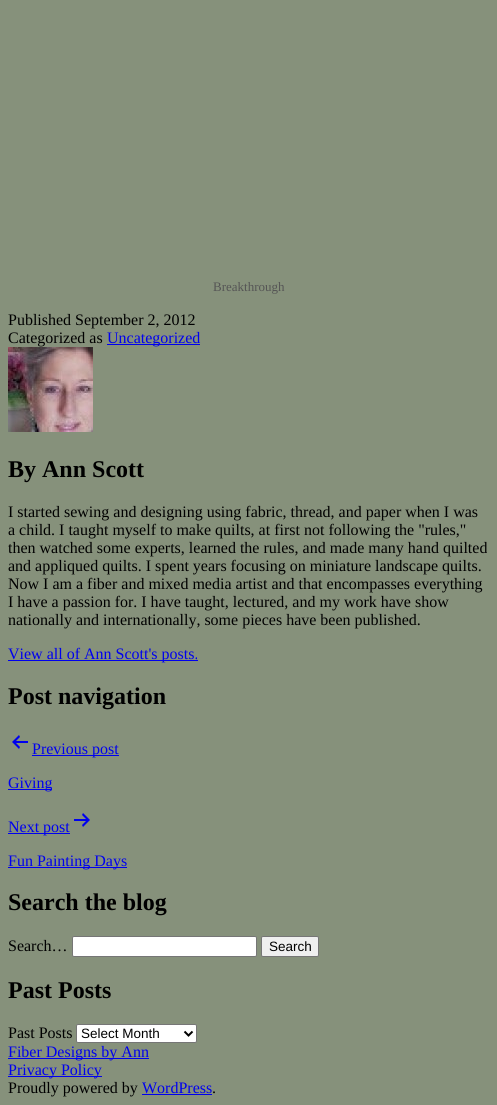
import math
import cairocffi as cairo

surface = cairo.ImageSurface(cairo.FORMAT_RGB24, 497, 1105)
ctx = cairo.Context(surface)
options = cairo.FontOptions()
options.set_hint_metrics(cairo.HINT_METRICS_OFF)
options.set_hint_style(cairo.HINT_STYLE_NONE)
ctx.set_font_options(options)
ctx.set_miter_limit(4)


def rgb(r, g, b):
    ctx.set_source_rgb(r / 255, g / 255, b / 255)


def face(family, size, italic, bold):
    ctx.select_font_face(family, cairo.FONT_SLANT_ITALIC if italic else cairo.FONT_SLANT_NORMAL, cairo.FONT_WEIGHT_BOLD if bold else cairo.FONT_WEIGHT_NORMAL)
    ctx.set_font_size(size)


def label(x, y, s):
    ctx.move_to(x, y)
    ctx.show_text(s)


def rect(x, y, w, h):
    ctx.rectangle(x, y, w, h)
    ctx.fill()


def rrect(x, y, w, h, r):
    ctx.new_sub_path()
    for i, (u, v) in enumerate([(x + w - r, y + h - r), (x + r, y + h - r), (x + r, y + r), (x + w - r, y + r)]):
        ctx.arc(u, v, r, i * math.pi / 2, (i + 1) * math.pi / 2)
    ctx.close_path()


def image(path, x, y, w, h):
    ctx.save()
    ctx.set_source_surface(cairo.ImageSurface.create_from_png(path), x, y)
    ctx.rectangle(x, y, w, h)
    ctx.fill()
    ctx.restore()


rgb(134, 145, 123)
ctx.paint()
face('Liberation Serif', 13, 0, 0)
rgb(85, 85, 85)
label(213, 291, 'Breakthrough')
face('Liberation Serif', 16, 0, 0)
rgb(0, 0, 0)
label(8, 325, 'Published September 2, 2012')
label(8, 343, 'Categorized as')
rgb(0, 0, 238)
rect(107, 344, 93, 1)
label(107, 343, 'Uncategorized')
image('image0.png', 8, 347, 85, 85)
face('Liberation Serif', 24, 0, 1)
rgb(0, 0, 0)
label(8, 477, 'By Ann Scott')
face('Liberation Serif', 16, 0, 0)
label(8, 517, 'I started sewing and designing using fabric, thread, and paper when I was')
label(8, 535, 'a child. I taught myself to make quilts, at first not following the "rules,"')
label(8, 553, 'then watched some experts, learned the rules, and made many hand quilted')
label(8, 571, 'and appliqued quilts. I spent years focusing on miniature landscape quilts.')
label(8, 589, 'Now I am a fiber and mixed media artist and that encompasses everything')
label(8, 607, 'I have a passion for. I have taught, lectured, and my work have show')
label(8, 625, 'nationally and internationally, some pieces have been published.')
rgb(0, 0, 238)
rect(8, 660, 190, 1)
label(8, 659, 'View all of Ann Scott\'s posts.')
face('Liberation Serif', 24, 0, 1)
rgb(0, 0, 0)
label(8, 704, 'Post navigation')
image('image1.png', 12, 735, 16, 14)
rgb(0, 0, 238)
rect(32, 755, 87, 1)
face('Liberation Serif', 16, 0, 0)
label(32, 754, 'Previous post')
rect(8, 789, 44, 1)
label(8, 788, 'Giving')
rect(8, 833, 62, 1)
label(8, 832, 'Next post')
image('image2.png', 74, 813, 16, 14)
rect(8, 867, 119, 1)
label(8, 866, 'Fun Painting Days')
face('Liberation Serif', 24, 0, 1)
rgb(0, 0, 0)
label(8, 910, 'Search the blog')
face('Liberation Serif', 16, 0, 0)
label(8, 951, 'Search…')
rgb(255, 255, 255)
rrect(72.5, 936.5, 184, 20, 1.5)
ctx.fill_preserve()
rgb(118, 118, 118)
ctx.set_line_width(1)
ctx.stroke()
rgb(239, 239, 239)
rrect(261.5, 936.5, 57, 20, 1.5)
ctx.fill_preserve()
rgb(118, 118, 118)
ctx.stroke()
face('Liberation Sans', 13.5, 0, 0)
rgb(0, 0, 0)
label(269, 951, 'Search')
face('Liberation Serif', 24, 0, 1)
label(8, 998, 'Past Posts')
face('Liberation Serif', 16, 0, 0)
label(8, 1038, 'Past Posts')
rgb(255, 255, 255)
rrect(76.5, 1024.5, 120, 18, 1.5)
ctx.fill_preserve()
rgb(118, 118, 118)
ctx.stroke()
ctx.new_path()
ctx.move_to(184.5, 1031.5)
ctx.line_to(188.5, 1035.5)
ctx.line_to(192.5, 1031.5)
rgb(0, 0, 0)
ctx.set_line_width(2)
ctx.stroke()
face('Liberation Sans', 13.5, 0, 0)
label(81, 1038, 'Select Month')
rgb(0, 0, 238)
rect(8, 1058, 141, 1)
face('Liberation Serif', 16, 0, 0)
label(8, 1057, 'Fiber Designs by Ann')
rect(8, 1076, 94, 1)
label(8, 1075, 'Privacy Policy')
rgb(0, 0, 0)
label(8, 1093, 'Proudly powered by')
rgb(0, 0, 238)
label(142, 1093, 'WordPress')
rect(142, 1094, 70, 1)
rgb(0, 0, 0)
label(212, 1093, '.')
surface.write_to_png('render.png')
